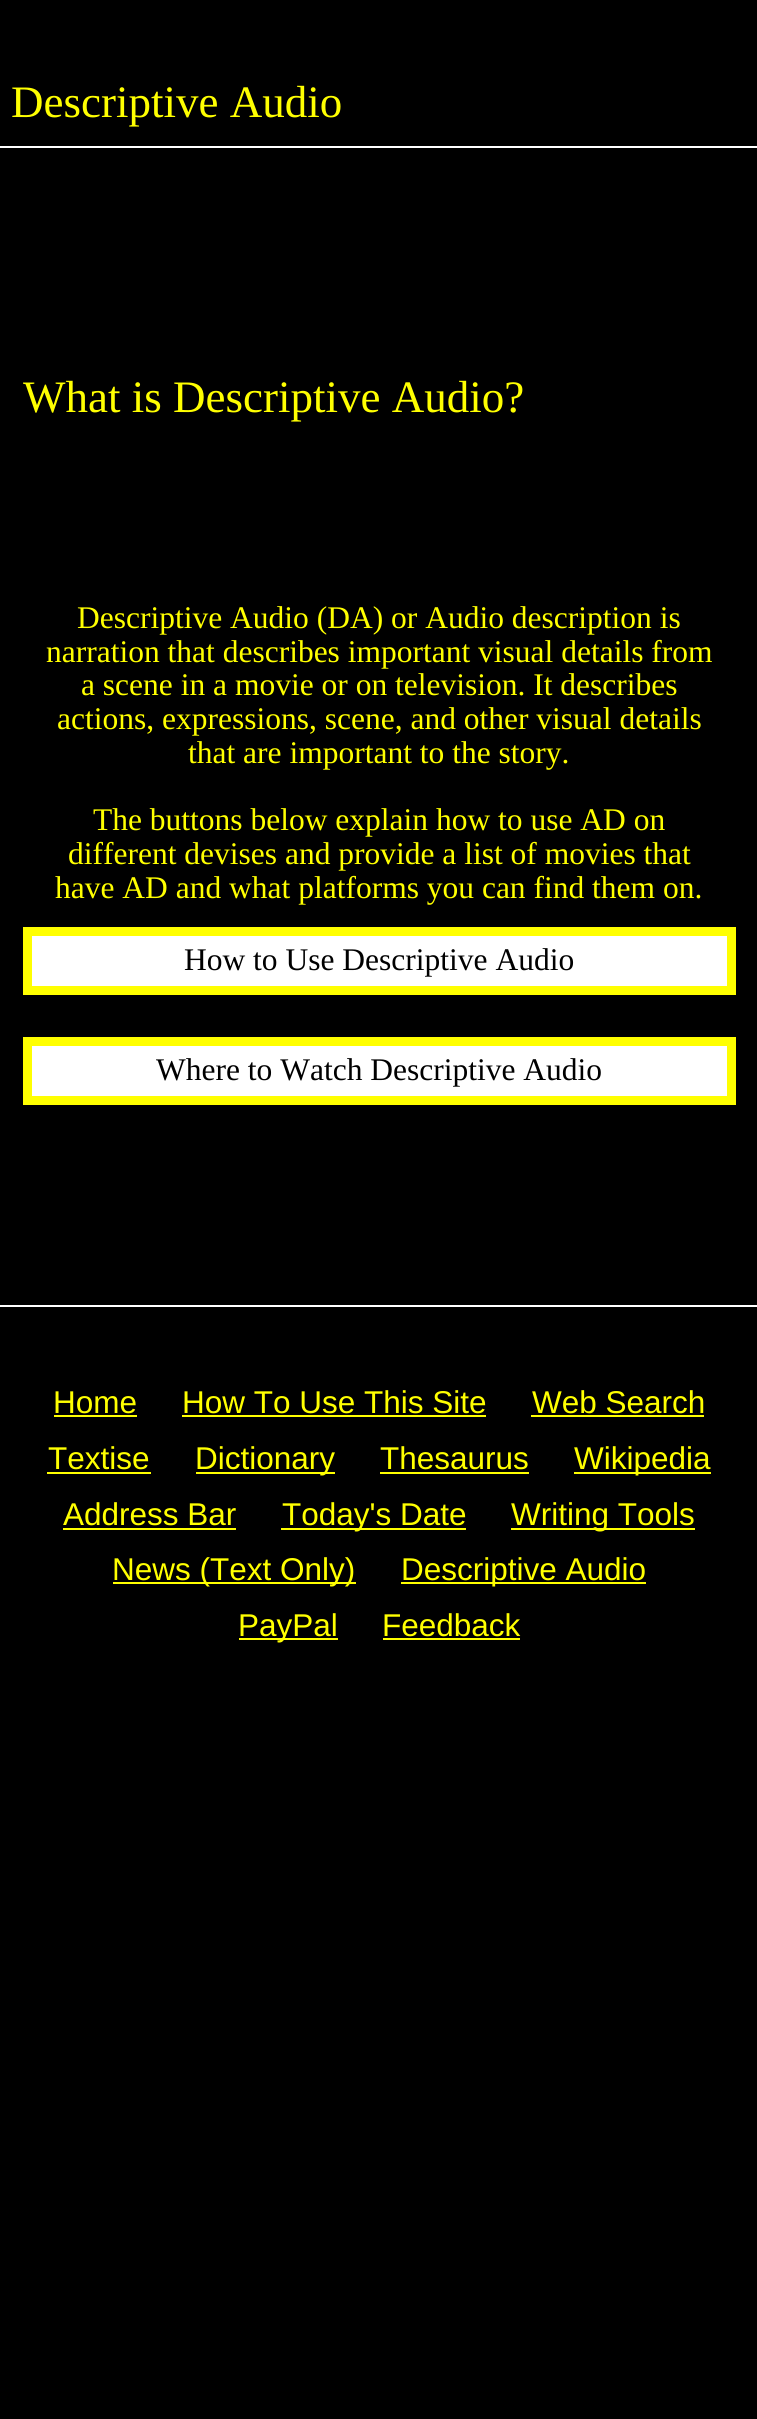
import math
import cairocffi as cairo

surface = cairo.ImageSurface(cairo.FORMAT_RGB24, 757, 2419)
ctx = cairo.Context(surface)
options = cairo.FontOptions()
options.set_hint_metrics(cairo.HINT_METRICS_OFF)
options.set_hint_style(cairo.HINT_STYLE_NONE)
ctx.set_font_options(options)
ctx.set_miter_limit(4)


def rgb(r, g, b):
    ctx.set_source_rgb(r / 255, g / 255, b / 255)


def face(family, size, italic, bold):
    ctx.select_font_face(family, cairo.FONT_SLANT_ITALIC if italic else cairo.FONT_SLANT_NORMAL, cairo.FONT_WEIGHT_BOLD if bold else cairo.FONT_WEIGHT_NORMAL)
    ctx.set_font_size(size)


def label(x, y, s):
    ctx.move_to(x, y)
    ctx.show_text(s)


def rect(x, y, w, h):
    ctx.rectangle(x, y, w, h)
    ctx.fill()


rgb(0, 0, 0)
ctx.paint()
rgb(255, 255, 255)
rect(0, 146, 757, 2)
face('Liberation Serif', 45, 0, 0)
rgb(255, 255, 0)
label(11, 117, 'Descriptive Audio')
label(23, 412, 'What is Descriptive Audio?')
face('Liberation Serif', 31.5, 0, 0)
label(77, 628, 'Descriptive Audio (DA) or Audio description is')
label(46, 662, 'narration that describes important visual details from')
label(81, 695, 'a scene in a movie or on television. It describes')
label(57, 729, 'actions, expressions, scene, and other visual details')
label(188, 763, 'that are important to the story.')
label(93, 830, 'The buttons below explain how to use AD on')
label(68, 864, 'different devises and provide a list of movies that')
label(55, 898, 'have AD and what platforms you can find them on.')
rgb(255, 255, 255)
ctx.rectangle(27.5, 931.5, 704, 59)
ctx.fill_preserve()
rgb(255, 255, 0)
ctx.set_line_width(9)
ctx.stroke()
rgb(0, 0, 0)
label(184, 970, 'How to Use Descriptive Audio')
rgb(255, 255, 255)
ctx.rectangle(27.5, 1041.5, 704, 59)
ctx.fill_preserve()
rgb(255, 255, 0)
ctx.stroke()
rgb(0, 0, 0)
label(156, 1080, 'Where to Watch Descriptive Audio')
rgb(255, 255, 255)
rect(0, 1305, 757, 2)
face('Liberation Sans', 31.5, 0, 0)
rgb(255, 255, 0)
label(53, 1413, 'Home')
rect(54, 1415, 83, 2)
label(182, 1413, 'How To Use This Site')
rect(182, 1415, 304, 2)
label(532, 1413, 'Web Search')
rect(531, 1415, 173, 2)
label(48, 1469, 'Textise')
rect(47, 1472, 104, 2)
rect(196, 1472, 139, 2)
label(195, 1469, 'Dictionary')
label(380, 1469, 'Thesaurus')
rect(380, 1472, 149, 2)
rect(574, 1472, 137, 2)
label(574, 1469, 'Wikipedia')
label(63, 1525, 'Address Bar')
rect(63, 1528, 173, 2)
rect(281, 1528, 185, 2)
label(282, 1525, 'Today\'s Date')
rect(511, 1528, 184, 2)
label(511, 1525, 'Writing Tools')
rect(113, 1582, 243, 2)
label(112, 1580, 'News (Text Only)')
rect(401, 1582, 245, 2)
label(401, 1580, 'Descriptive Audio')
rect(239, 1638, 99, 2)
label(238, 1636, 'PayPal')
label(382, 1636, 'Feedback')
rect(383, 1638, 137, 2)
surface.write_to_png('render.png')
